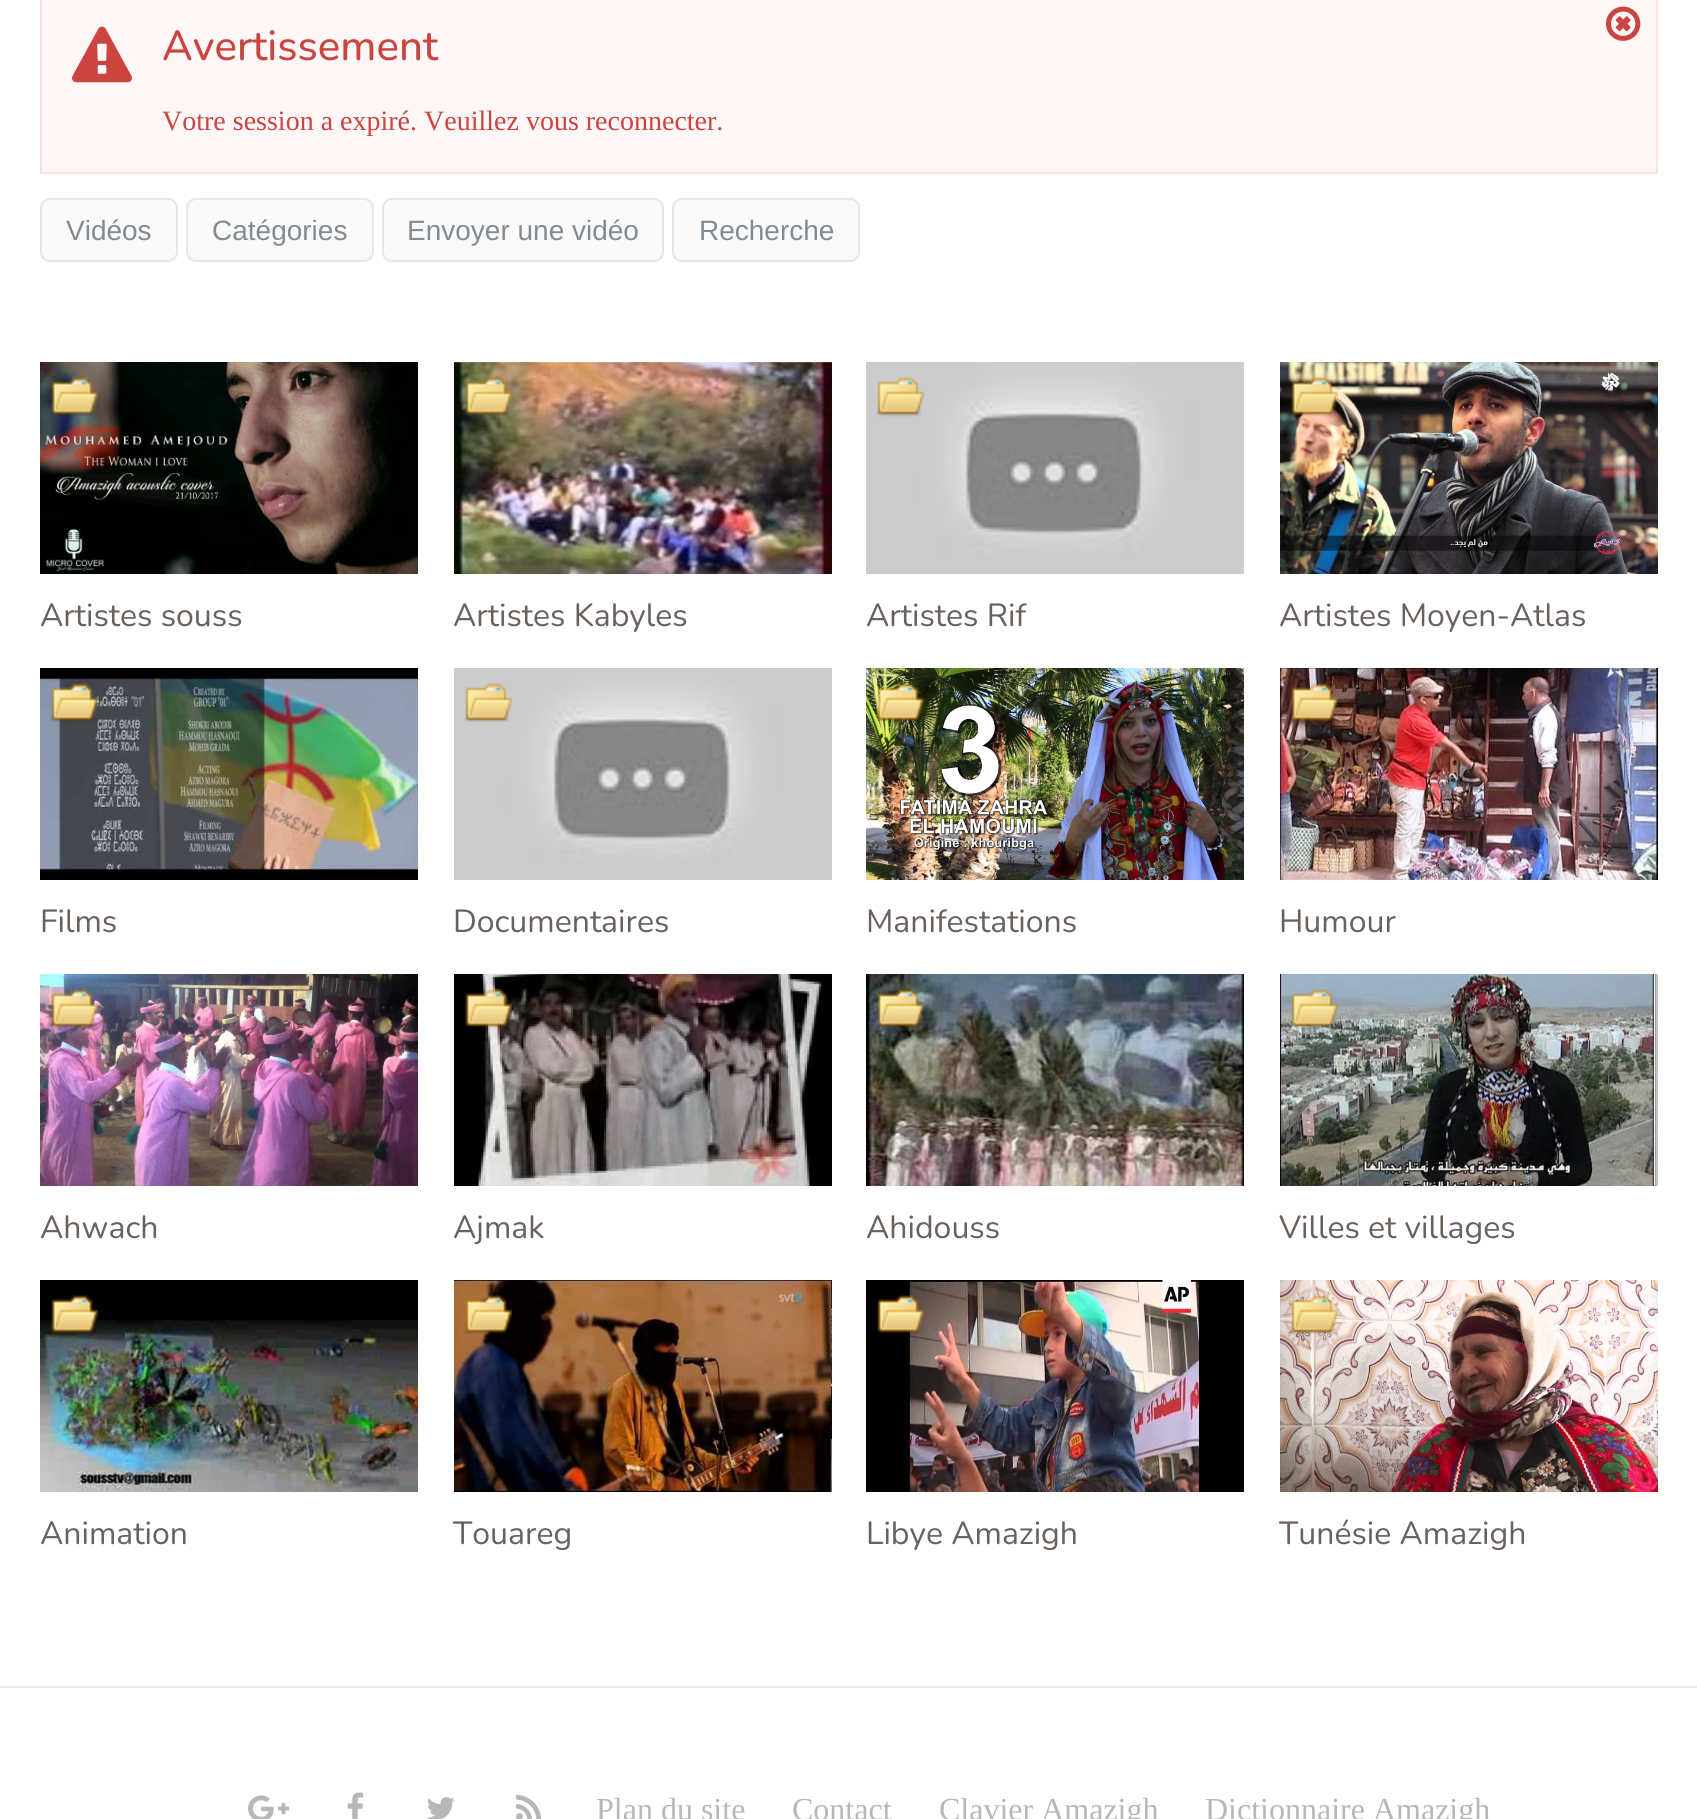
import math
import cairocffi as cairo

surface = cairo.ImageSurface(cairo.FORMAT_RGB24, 1697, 1819)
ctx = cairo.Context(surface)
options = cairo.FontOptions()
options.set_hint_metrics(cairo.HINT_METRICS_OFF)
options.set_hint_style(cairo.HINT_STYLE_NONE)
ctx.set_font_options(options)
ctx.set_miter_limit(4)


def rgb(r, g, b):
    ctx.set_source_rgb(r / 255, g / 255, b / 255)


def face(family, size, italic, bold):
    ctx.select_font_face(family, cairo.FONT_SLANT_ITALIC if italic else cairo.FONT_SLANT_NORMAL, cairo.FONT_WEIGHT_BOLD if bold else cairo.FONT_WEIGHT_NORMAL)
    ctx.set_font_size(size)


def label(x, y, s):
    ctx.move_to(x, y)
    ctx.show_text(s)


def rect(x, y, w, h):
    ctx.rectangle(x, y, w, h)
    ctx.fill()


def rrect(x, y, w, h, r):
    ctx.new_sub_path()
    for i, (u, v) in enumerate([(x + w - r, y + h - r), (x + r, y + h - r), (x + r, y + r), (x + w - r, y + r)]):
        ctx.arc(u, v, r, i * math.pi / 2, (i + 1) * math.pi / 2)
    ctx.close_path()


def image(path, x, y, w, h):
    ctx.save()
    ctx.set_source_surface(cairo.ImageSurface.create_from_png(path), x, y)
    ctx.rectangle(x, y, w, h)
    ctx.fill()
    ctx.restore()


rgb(255, 255, 255)
ctx.paint()
rgb(253, 247, 247)
ctx.rectangle(41, -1, 1616, 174)
ctx.fill_preserve()
rgb(251, 224, 224)
ctx.stroke()
image('image0.png', 72, 26, 60, 57)
face('Nunito Medium', 42, 0, 0)
rgb(204, 68, 64)
label(162, 60, 'Avertissement')
image('image1.png', 1606, 6, 35, 35)
face('Liberation Serif', 28, 0, 0)
label(162, 130, 'Votre session a expiré. Veuillez vous reconnecter.')
rgb(250, 250, 250)
rrect(41, 199, 136, 62, 9)
ctx.fill_preserve()
rgb(230, 230, 230)
ctx.stroke()
face('Liberation Sans', 28, 0, 0)
rgb(132, 139, 144)
label(66, 240, 'Vidéos')
rgb(250, 250, 250)
rrect(187, 199, 186, 62, 9)
ctx.fill_preserve()
rgb(230, 230, 230)
ctx.stroke()
rgb(132, 139, 144)
label(212, 240, 'Catégories')
rgb(250, 250, 250)
rrect(383, 199, 280, 62, 9)
ctx.fill_preserve()
rgb(230, 230, 230)
ctx.stroke()
rgb(132, 139, 144)
label(407, 240, 'Envoyer une vidéo')
rgb(250, 250, 250)
rrect(673, 199, 186, 62, 9)
ctx.fill_preserve()
rgb(230, 230, 230)
ctx.stroke()
rgb(132, 139, 144)
label(699, 240, 'Recherche')
image('image2.png', 40, 362, 378, 212)
image('image3.png', 50, 377, 48, 39)
face('Nunito', 32, 0, 0)
rgb(104, 97, 93)
label(40, 626, 'Artistes souss')
image('image4.png', 454, 362, 378, 212)
image('image5.png', 465, 377, 47, 39)
label(453, 626, 'Artistes Kabyles')
image('image6.png', 866, 362, 378, 212)
image('image7.png', 876, 377, 48, 40)
label(866, 626, 'Artistes Rif')
image('image8.png', 1280, 362, 378, 212)
image('image9.png', 1291, 377, 47, 40)
label(1279, 626, 'Artistes Moyen-Atlas')
rgb(0, 0, 0)
rect(40, 668, 378, 212)
image('image10.png', 40, 670, 378, 202)
image('image11.png', 50, 683, 48, 40)
rgb(104, 97, 93)
label(40, 932, 'Films')
image('image12.png', 454, 668, 378, 212)
image('image7.png', 464, 683, 48, 40)
label(453, 932, 'Documentaires')
image('image13.png', 866, 668, 378, 212)
image('image14.png', 876, 683, 48, 40)
label(866, 932, 'Manifestations')
image('image15.png', 1280, 668, 378, 212)
image('image16.png', 1290, 683, 48, 39)
label(1279, 932, 'Humour')
image('image17.png', 40, 974, 378, 212)
image('image18.png', 50, 989, 48, 40)
label(40, 1238, 'Ahwach')
rgb(0, 0, 0)
rect(454, 974, 378, 212)
image('image19.png', 474, 974, 349, 212)
image('image20.png', 465, 989, 47, 40)
rgb(104, 97, 93)
label(453, 1238, 'Ajmak')
image('image21.png', 866, 974, 378, 212)
image('image22.png', 876, 989, 48, 39)
label(866, 1238, 'Ahidouss')
image('image23.png', 1280, 974, 378, 212)
image('image24.png', 1290, 989, 48, 40)
label(1279, 1238, 'Villes et villages')
rgb(0, 0, 0)
rect(40, 1280, 378, 39)
image('image26.png', 40, 1319, 378, 173)
image('image25.png', 51, 1295, 47, 38)
rgb(104, 97, 93)
label(40, 1544, 'Animation')
image('image27.png', 454, 1280, 378, 212)
image('image28.png', 464, 1295, 48, 40)
label(453, 1544, 'Touareg')
rgb(0, 0, 0)
rect(866, 1280, 378, 212)
image('image30.png', 904, 1280, 302, 212)
image('image29.png', 877, 1295, 47, 39)
rgb(104, 97, 93)
label(866, 1544, 'Libye Amazigh')
image('image31.png', 1280, 1280, 378, 212)
image('image32.png', 1290, 1295, 48, 40)
label(1279, 1544, 'Tunésie Amazigh')
rgb(231, 238, 250)
rect(0, 1686, 1697, 2)
image('image33.png', 248, 1795, 42, 24)
image('image34.png', 347, 1792, 17, 27)
image('image35.png', 427, 1797, 28, 22)
image('image36.png', 516, 1794, 26, 25)
face('Liberation Serif', 32, 0, 0)
rgb(183, 183, 183)
label(596, 1820, 'Plan du site')
label(792, 1820, 'Contact')
label(939, 1820, 'Clavier Amazigh')
label(1205, 1820, 'Dictionnaire Amazigh')
surface.write_to_png('render.png')
